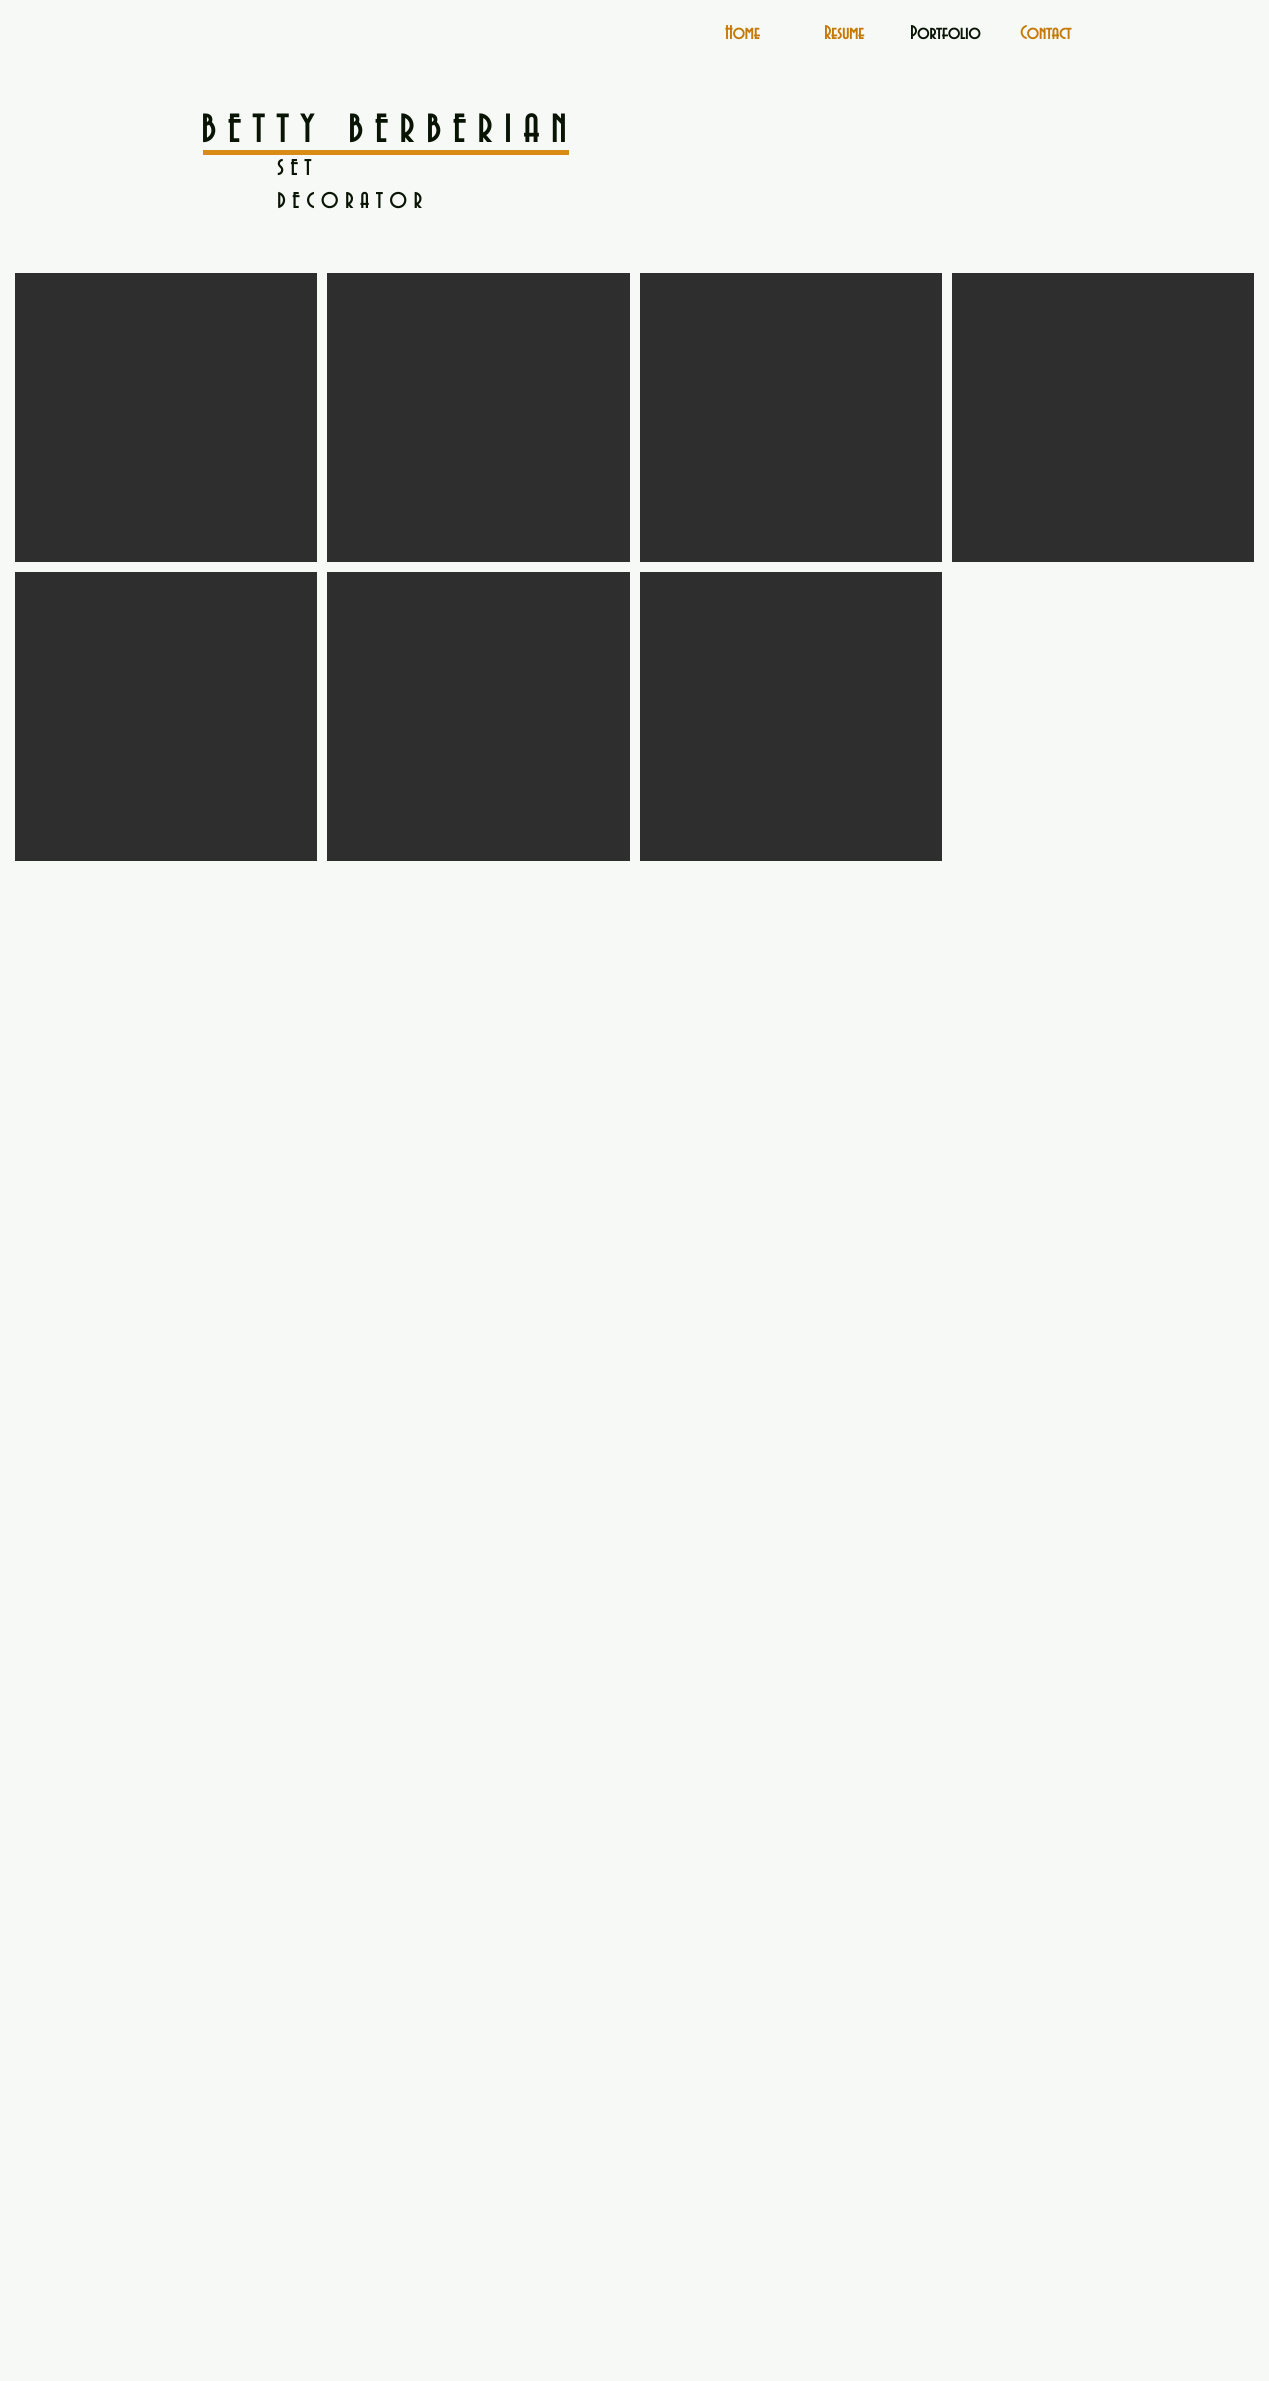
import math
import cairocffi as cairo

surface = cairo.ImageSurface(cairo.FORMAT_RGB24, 1269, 2381)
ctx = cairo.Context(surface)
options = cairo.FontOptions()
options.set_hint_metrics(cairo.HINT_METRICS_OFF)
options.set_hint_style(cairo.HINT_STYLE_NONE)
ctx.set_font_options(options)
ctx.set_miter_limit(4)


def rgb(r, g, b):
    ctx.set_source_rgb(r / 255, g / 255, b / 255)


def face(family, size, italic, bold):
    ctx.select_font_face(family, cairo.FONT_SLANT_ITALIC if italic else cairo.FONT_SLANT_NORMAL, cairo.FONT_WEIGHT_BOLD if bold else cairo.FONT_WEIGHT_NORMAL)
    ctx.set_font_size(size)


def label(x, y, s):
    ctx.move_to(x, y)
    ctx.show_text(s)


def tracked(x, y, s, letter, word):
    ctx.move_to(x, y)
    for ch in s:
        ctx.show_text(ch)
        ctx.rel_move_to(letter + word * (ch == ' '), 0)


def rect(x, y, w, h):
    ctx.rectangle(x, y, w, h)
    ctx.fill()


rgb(246, 249, 245)
ctx.paint()
face('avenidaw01', 20, 0, 1)
rgb(198, 121, 7)
label(725, 39, 'Home')
label(824, 39, 'Resume')
rgb(9, 20, 5)
label(910, 39, 'Portfolio')
rgb(198, 121, 7)
label(1020, 39, 'Contact')
face('avenidaw01', 41, 0, 1)
rgb(9, 20, 5)
tracked(201, 142, 'BETTY BERBERIAN', 12.25, 0)
rgb(218, 139, 21)
rect(203, 150, 366, 5)
face('avenidaw01', 23, 0, 1)
rgb(9, 20, 5)
tracked(277, 175, 'SET', 7, 0)
tracked(277, 208, 'DECORATOR', 7, 0)
rgb(47, 46, 46)
rect(15, 273, 302, 289)
rect(327, 273, 303, 289)
rect(640, 273, 302, 289)
rect(952, 273, 302, 289)
rect(15, 572, 302, 289)
rect(327, 572, 303, 289)
rect(640, 572, 302, 289)
surface.write_to_png('render.png')
